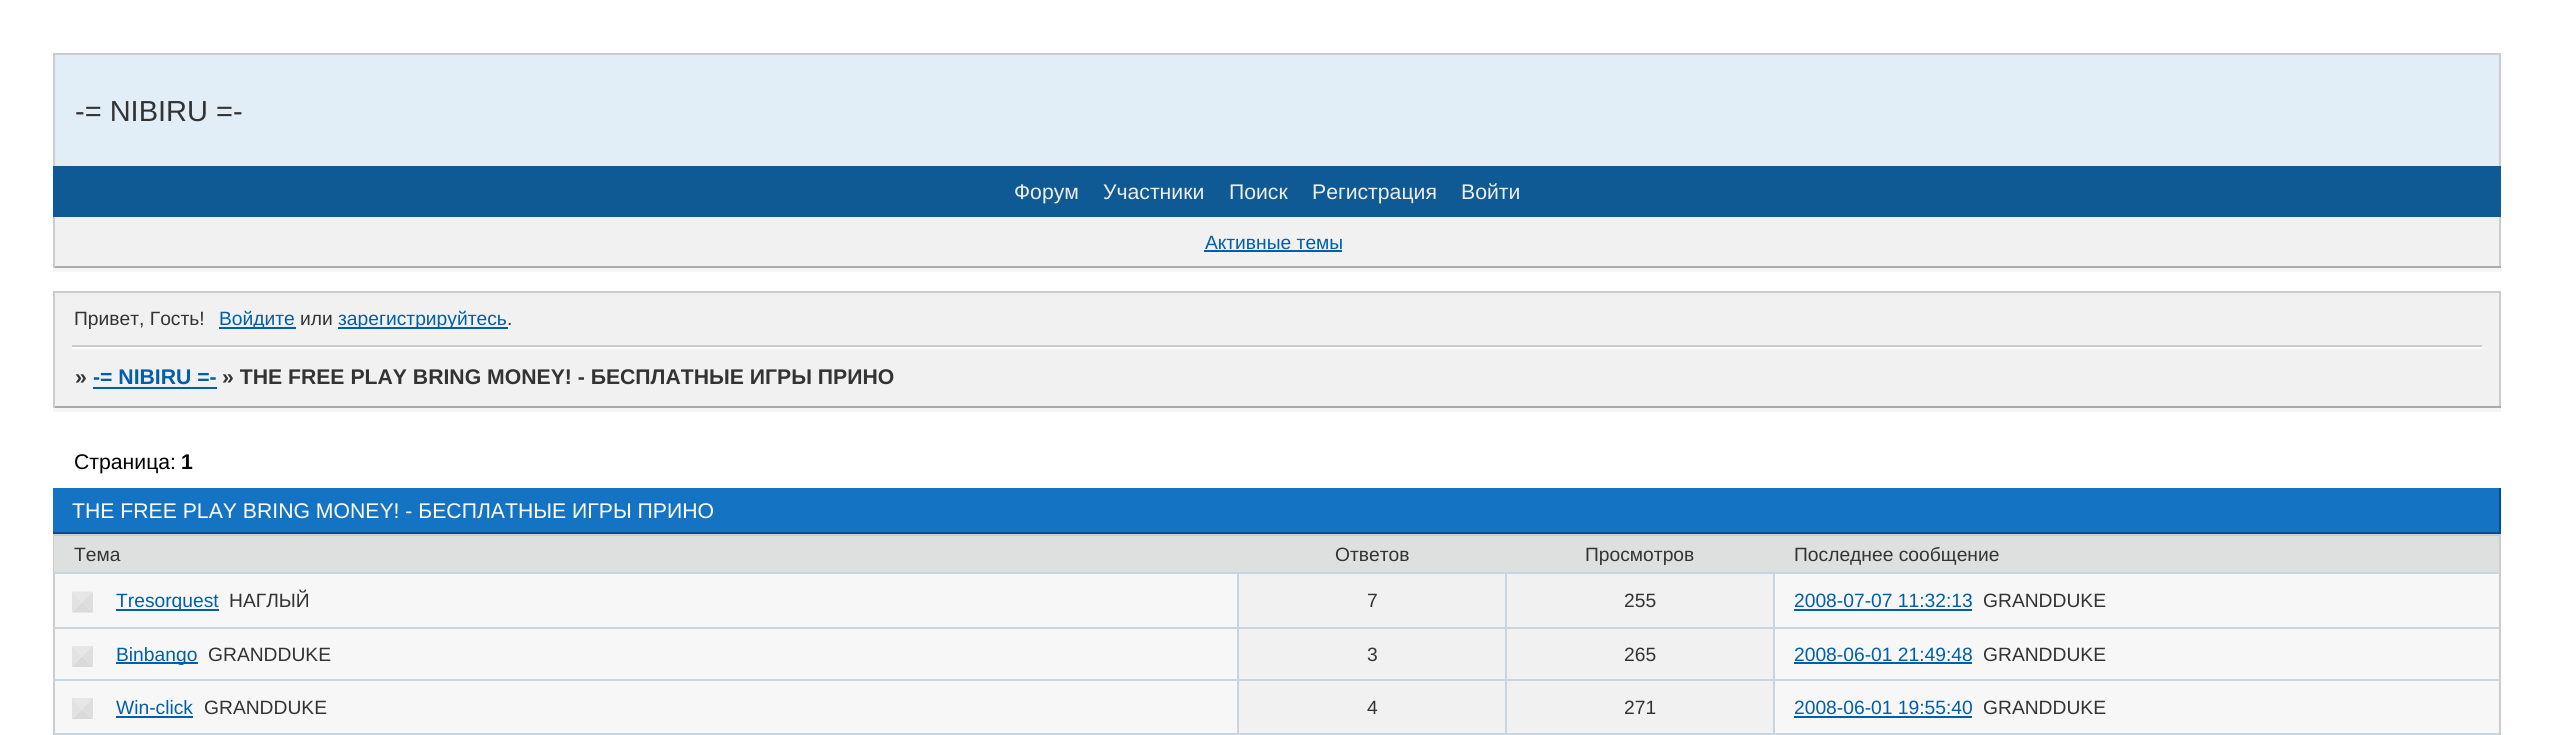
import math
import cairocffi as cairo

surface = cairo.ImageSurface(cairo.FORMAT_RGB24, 2553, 735)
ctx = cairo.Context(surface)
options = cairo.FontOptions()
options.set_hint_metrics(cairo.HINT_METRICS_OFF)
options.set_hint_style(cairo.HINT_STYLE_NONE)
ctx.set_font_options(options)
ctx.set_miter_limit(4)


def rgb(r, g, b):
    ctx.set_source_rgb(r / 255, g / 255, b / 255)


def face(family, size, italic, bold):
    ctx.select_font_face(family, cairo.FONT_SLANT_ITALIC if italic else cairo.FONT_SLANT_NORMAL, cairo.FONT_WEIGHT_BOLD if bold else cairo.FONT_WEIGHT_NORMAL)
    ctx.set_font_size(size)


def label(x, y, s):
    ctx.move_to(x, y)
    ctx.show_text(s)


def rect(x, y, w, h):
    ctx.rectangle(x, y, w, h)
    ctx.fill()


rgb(255, 255, 255)
ctx.paint()
rgb(225, 237, 247)
rect(55, 55, 2444, 111)
rgb(204, 204, 204)
rect(53, 53, 2448, 2)
rect(2499, 53, 2, 113)
rect(53, 53, 2, 113)
face('Liberation Sans', 29, 0, 0)
rgb(51, 51, 51)
label(75, 121, '-= NIBIRU =-')
rgb(15, 89, 149)
rect(53, 166, 2448, 51)
face('Liberation Sans', 21.2, 0, 0)
rgb(238, 238, 238)
label(1014, 199, 'Форум')
label(1103, 199, 'Участники')
label(1229, 199, 'Поиск')
label(1312, 199, 'Регистрация')
label(1461, 199, 'Войти')
rgb(245, 245, 245)
rect(53, 268, 2448, 4)
rgb(241, 241, 241)
rect(55, 217, 2444, 49)
rgb(204, 204, 204)
rect(2499, 217, 2, 51)
rgb(170, 170, 170)
rect(53, 266, 2448, 2)
rgb(204, 204, 204)
rect(53, 217, 2, 51)
face('Liberation Sans', 19.25, 0, 0)
rgb(0, 94, 171)
label(1205, 249, 'Активные темы')
rect(1204, 250, 138, 2)
rgb(241, 241, 241)
rect(55, 293, 2444, 113)
rgb(204, 204, 204)
rect(53, 291, 2448, 2)
rect(2499, 291, 2, 117)
rect(53, 291, 2, 57)
rgb(51, 51, 51)
label(74, 325, 'Привет, Гость!')
rgb(0, 94, 171)
rect(219, 327, 77, 2)
label(219, 325, 'Войдите')
rgb(51, 51, 51)
label(300, 325, 'или')
rgb(0, 94, 171)
rect(338, 327, 170, 2)
label(338, 325, 'зарегистрируйтесь')
rgb(51, 51, 51)
label(507, 325, '.')
rgb(204, 204, 204)
rect(72, 345, 2410, 2)
rgb(255, 255, 255)
rect(72, 347, 2410, 2)
rgb(245, 245, 245)
rect(53, 408, 2448, 4)
rgb(170, 170, 170)
rect(53, 406, 2448, 2)
rgb(204, 204, 204)
rect(53, 345, 2, 63)
face('Liberation Sans', 21.2, 0, 1)
rgb(51, 51, 51)
label(75, 384, '»')
rgb(0, 94, 171)
label(93, 384, '-= NIBIRU =-')
rect(93, 387, 124, 2)
rgb(51, 51, 51)
label(222, 384, '» THE FREE PLAY BRING MONEY! - БЕСПЛАТНЫЕ ИГРЫ ПРИНО')
face('Liberation Sans', 21.2, 0, 0)
rgb(0, 0, 0)
label(74, 469, 'Страница:')
face('Liberation Sans', 21.2, 0, 1)
label(181, 469, '1')
rgb(20, 116, 195)
rect(53, 488, 2446, 44)
rgb(0, 79, 144)
rect(2499, 488, 2, 46)
rect(53, 532, 2448, 2)
face('Liberation Sans', 21.2, 0, 0)
rgb(255, 255, 255)
label(72, 518, 'THE FREE PLAY BRING MONEY! - БЕСПЛАТНЫЕ ИГРЫ ПРИНО')
rgb(247, 247, 247)
rect(55, 574, 2444, 159)
rgb(204, 204, 204)
rect(53, 534, 2448, 2)
rect(2499, 534, 2, 201)
rect(53, 534, 2, 201)
rgb(222, 223, 223)
rect(54, 536, 2445, 36)
face('Liberation Sans', 19.25, 0, 0)
rgb(51, 51, 51)
label(74, 561, 'Тема')
label(1335, 561, 'Ответов')
label(1585, 561, 'Просмотров')
label(1794, 561, 'Последнее сообщение')
rgb(230, 230, 230)
ctx.new_path()
ctx.move_to(72, 591.5)
ctx.line_to(93, 591.5)
ctx.line_to(82, 602)
ctx.close_path()
ctx.fill()
rgb(222, 222, 222)
ctx.new_path()
ctx.move_to(93, 591.5)
ctx.line_to(93, 612.5)
ctx.line_to(82, 602)
ctx.close_path()
ctx.fill()
rgb(218, 218, 218)
ctx.new_path()
ctx.move_to(93, 612.5)
ctx.line_to(72, 612.5)
ctx.line_to(82, 602)
ctx.close_path()
ctx.fill()
rgb(226, 226, 226)
ctx.new_path()
ctx.move_to(72, 612.5)
ctx.line_to(72, 591.5)
ctx.line_to(82, 602)
ctx.close_path()
ctx.fill()
rgb(0, 94, 171)
rect(116, 609, 103, 2)
label(116, 607, 'Tresorquest')
rgb(51, 51, 51)
label(229, 607, 'НАГЛЫЙ')
rgb(241, 241, 241)
rect(1239, 574, 266, 53)
rgb(201, 214, 224)
rect(54, 572, 2445, 2)
rect(1237, 572, 2, 55)
rgb(51, 51, 51)
label(1367, 607, '7')
rgb(241, 241, 241)
rect(1507, 574, 266, 53)
rgb(201, 214, 224)
rect(1505, 572, 2, 55)
rgb(51, 51, 51)
label(1624, 607, '255')
rgb(201, 214, 224)
rect(54, 627, 2445, 2)
rect(54, 679, 2445, 2)
rect(1773, 572, 2, 161)
rgb(0, 94, 171)
label(1794, 607, '2008-07-07 11:32:13')
rect(1794, 609, 178, 2)
rgb(51, 51, 51)
label(1983, 607, 'GRANDDUKE')
rgb(230, 230, 230)
ctx.new_path()
ctx.move_to(72, 646)
ctx.line_to(93, 646)
ctx.line_to(82, 656)
ctx.close_path()
ctx.fill()
rgb(222, 222, 222)
ctx.new_path()
ctx.move_to(93, 646)
ctx.line_to(93, 667)
ctx.line_to(82, 656)
ctx.close_path()
ctx.fill()
rgb(218, 218, 218)
ctx.new_path()
ctx.move_to(93, 667)
ctx.line_to(72, 667)
ctx.line_to(82, 656)
ctx.close_path()
ctx.fill()
rgb(226, 226, 226)
ctx.new_path()
ctx.move_to(72, 667)
ctx.line_to(72, 646)
ctx.line_to(82, 656)
ctx.close_path()
ctx.fill()
rgb(0, 94, 171)
rect(116, 662, 82, 2)
label(116, 661, 'Binbango')
rgb(51, 51, 51)
label(208, 661, 'GRANDDUKE')
rgb(241, 241, 241)
rect(1239, 629, 266, 50)
rgb(201, 214, 224)
rect(1237, 627, 2, 52)
rgb(51, 51, 51)
label(1367, 661, '3')
rgb(241, 241, 241)
rect(1507, 629, 266, 50)
rgb(201, 214, 224)
rect(1505, 627, 2, 52)
rgb(51, 51, 51)
label(1624, 661, '265')
rgb(0, 94, 171)
label(1794, 661, '2008-06-01 21:49:48')
rect(1794, 662, 178, 2)
rgb(51, 51, 51)
label(1983, 661, 'GRANDDUKE')
rgb(230, 230, 230)
ctx.new_path()
ctx.move_to(72, 698)
ctx.line_to(93, 698)
ctx.line_to(82, 709)
ctx.close_path()
ctx.fill()
rgb(222, 222, 222)
ctx.new_path()
ctx.move_to(93, 698)
ctx.line_to(93, 719)
ctx.line_to(82, 709)
ctx.close_path()
ctx.fill()
rgb(218, 218, 218)
ctx.new_path()
ctx.move_to(93, 719)
ctx.line_to(72, 719)
ctx.line_to(82, 709)
ctx.close_path()
ctx.fill()
rgb(226, 226, 226)
ctx.new_path()
ctx.move_to(72, 719)
ctx.line_to(72, 698)
ctx.line_to(82, 709)
ctx.close_path()
ctx.fill()
rgb(0, 94, 171)
label(116, 714, 'Win-click')
rect(116, 716, 77, 2)
rgb(51, 51, 51)
label(204, 714, 'GRANDDUKE')
rgb(241, 241, 241)
rect(1239, 681, 266, 52)
rgb(201, 214, 224)
rect(1237, 679, 2, 54)
rgb(51, 51, 51)
label(1367, 714, '4')
rgb(241, 241, 241)
rect(1507, 681, 266, 52)
rgb(201, 214, 224)
rect(1505, 679, 2, 54)
rgb(51, 51, 51)
label(1624, 714, '271')
rgb(0, 94, 171)
label(1794, 714, '2008-06-01 19:55:40')
rect(1794, 716, 178, 2)
rgb(51, 51, 51)
label(1983, 714, 'GRANDDUKE')
rgb(201, 214, 224)
rect(54, 733, 2445, 2)
surface.write_to_png('render.png')
